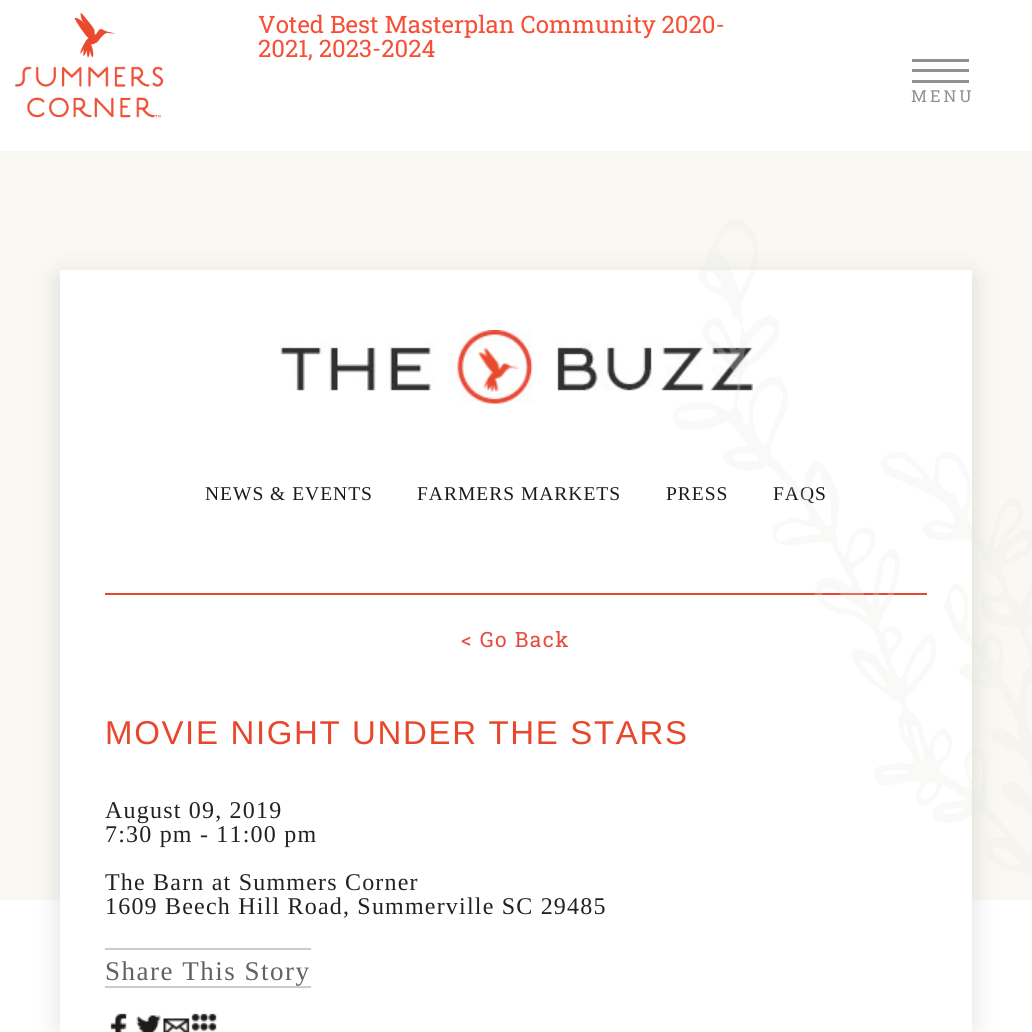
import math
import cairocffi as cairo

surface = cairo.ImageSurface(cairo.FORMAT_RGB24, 1032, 1032)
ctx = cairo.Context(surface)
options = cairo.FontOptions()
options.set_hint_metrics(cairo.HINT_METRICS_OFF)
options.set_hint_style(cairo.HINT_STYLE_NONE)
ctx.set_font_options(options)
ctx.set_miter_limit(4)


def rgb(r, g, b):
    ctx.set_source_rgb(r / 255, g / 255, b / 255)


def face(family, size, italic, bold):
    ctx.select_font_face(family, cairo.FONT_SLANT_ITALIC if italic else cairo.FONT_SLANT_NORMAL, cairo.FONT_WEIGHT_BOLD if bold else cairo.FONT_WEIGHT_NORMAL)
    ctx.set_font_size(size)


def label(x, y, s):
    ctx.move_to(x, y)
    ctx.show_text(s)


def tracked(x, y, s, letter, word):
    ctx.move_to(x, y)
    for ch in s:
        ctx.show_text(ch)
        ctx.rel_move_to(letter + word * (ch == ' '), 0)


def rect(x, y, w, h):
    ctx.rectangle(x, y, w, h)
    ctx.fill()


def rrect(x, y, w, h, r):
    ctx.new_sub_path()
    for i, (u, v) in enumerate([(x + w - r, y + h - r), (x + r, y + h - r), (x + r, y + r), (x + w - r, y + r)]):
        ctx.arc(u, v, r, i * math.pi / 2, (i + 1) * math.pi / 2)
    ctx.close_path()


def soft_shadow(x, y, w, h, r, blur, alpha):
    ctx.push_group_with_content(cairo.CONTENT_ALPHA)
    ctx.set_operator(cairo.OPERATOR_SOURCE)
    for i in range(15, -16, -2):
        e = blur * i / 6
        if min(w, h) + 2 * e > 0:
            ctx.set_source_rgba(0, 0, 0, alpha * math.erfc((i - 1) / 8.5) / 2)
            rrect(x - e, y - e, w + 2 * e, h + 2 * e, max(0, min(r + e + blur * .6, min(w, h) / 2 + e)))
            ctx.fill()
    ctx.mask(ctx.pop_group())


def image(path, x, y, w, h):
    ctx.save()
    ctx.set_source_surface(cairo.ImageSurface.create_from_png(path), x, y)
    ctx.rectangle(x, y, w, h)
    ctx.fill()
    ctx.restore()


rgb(255, 255, 255)
ctx.paint()
face('Roboto Slab', 24, 0, 0)
rgb(246, 79, 53)
label(258, 33, 'Voted Best Masterplan Community 2020-')
label(258, 57, '2021, 2023-2024')
image('image0.png', 15, 13, 149, 105)
rgb(145, 144, 145)
rect(912, 59, 57, 3)
rect(912, 69, 57, 3)
rect(912, 80, 57, 3)
face('Roboto Slab', 16.5, 0, 0)
tracked(911, 102, 'MENU', 3, 0)
rgb(249, 248, 242)
rect(0, 151, 1032, 749)
rgb(0, 0, 0)
soft_shadow(60, 278, 912, 750, 0, 15, 0.12)
rgb(255, 255, 255)
rect(60, 270, 912, 762)
image('image1.png', 280, 330, 473, 74)
rgb(231, 72, 45)
rect(105, 593, 822, 2)
face('Liberation Serif', 19.5, 0, 0)
rgb(26, 26, 26)
tracked(205, 500, 'NEWS & EVENTS', 1, 0)
tracked(417, 500, 'FARMERS MARKETS', 1, 0)
tracked(666, 500, 'PRESS', 1, 0)
tracked(773, 500, 'FAQS', 1, 0)
face('Roboto Slab', 21, 0, 0)
rgb(229, 75, 63)
tracked(461, 647, '< Go Back', 1.5, 0)
face('Liberation Sans', 33, 0, 0)
rgb(231, 72, 45)
tracked(105, 744, 'MOVIE NIGHT UNDER THE STARS', 1.65, 0)
face('Liberation Serif', 24, 0, 0)
rgb(34, 34, 34)
tracked(105, 818, 'August 09, 2019', 1.2, 0)
tracked(105, 842, '7:30 pm - 11:00 pm', 1.2, 0)
tracked(105, 890, 'The Barn at Summers Corner', 1.2, 0)
tracked(105, 914, '1609 Beech Hill Road, Summerville SC 29485', 1.2, 0)
face('Liberation Serif', 27, 0, 0)
rgb(98, 98, 98)
tracked(105, 980, 'Share This Story', 1.5, 0)
rgb(204, 204, 204)
rect(105, 948, 206, 2)
rect(105, 986, 206, 2)
image('image2.png', 110, 1013, 17, 19)
image('image3.png', 136, 1015, 25, 17)
image('image4.png', 163, 1018, 27, 14)
image('image5.png', 191, 1013, 26, 19)
image('image6.png', 673, 219, 359, 657)
surface.write_to_png('render.png')
